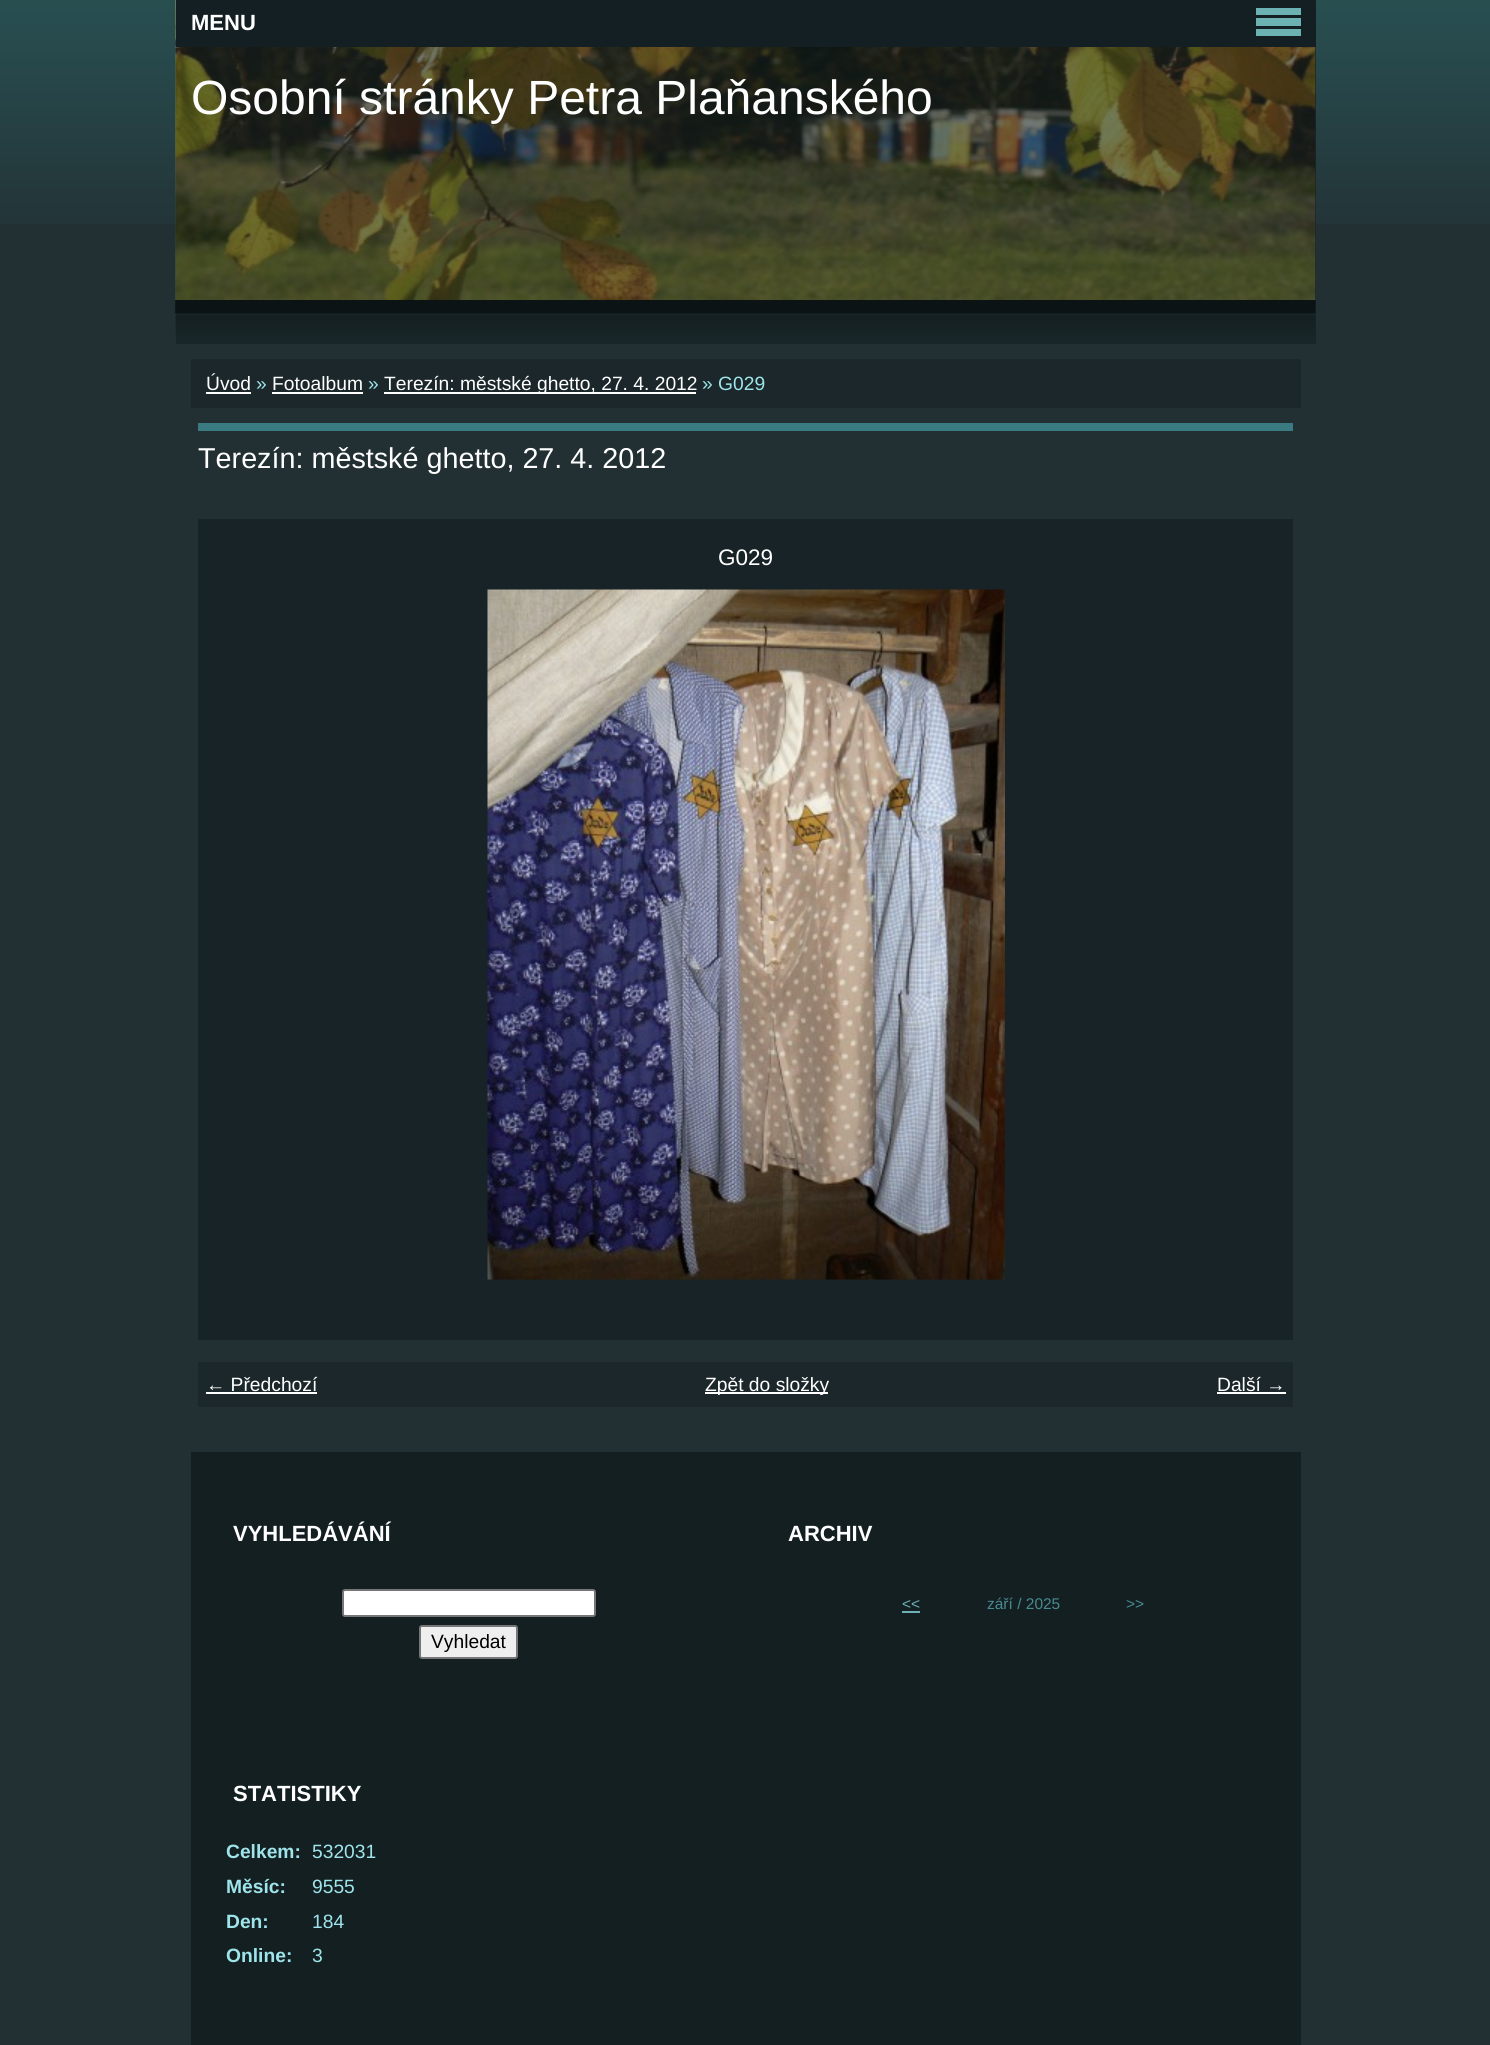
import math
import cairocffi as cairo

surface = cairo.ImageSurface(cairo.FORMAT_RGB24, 1490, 2045)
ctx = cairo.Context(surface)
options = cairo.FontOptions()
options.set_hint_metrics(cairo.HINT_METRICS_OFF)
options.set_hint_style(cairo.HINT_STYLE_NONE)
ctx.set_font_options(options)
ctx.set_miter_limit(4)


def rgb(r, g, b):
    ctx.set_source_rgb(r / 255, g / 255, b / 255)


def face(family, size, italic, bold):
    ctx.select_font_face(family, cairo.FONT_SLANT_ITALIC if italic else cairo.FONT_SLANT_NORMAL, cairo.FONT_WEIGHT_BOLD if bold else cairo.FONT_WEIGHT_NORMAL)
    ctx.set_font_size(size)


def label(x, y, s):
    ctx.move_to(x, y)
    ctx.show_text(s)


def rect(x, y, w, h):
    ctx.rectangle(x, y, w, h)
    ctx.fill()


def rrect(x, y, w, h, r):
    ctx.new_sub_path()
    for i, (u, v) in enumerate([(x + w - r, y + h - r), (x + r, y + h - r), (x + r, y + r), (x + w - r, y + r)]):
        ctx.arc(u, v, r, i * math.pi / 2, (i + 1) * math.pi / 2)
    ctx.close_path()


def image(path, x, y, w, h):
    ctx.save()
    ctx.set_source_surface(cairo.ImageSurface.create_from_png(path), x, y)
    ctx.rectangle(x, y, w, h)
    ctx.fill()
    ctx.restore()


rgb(34, 48, 52)
ctx.paint()
image('image0.png', 0, 0, 1490, 224)
rgb(34, 48, 52)
rect(1315, 47, 1, 177)
image('image3.png', 175, 0, 1141, 300)
rgb(19, 31, 34)
rect(176, 0, 1140, 47)
rgb(109, 178, 179)
rect(1256, 8, 45, 7)
rect(1256, 18, 45, 8)
rect(1256, 29, 45, 7)
rgb(20, 31, 34)
rect(191, 1452, 1110, 593)
face('Liberation Sans', 22, 0, 1)
rgb(255, 255, 255)
label(191, 30, 'MENU')
label(233, 1541, 'VYHLEDÁVÁNÍ')
rrect(343, 1590, 252, 26, 2)
ctx.fill_preserve()
rgb(118, 118, 118)
ctx.stroke()
rgb(239, 239, 239)
rrect(420, 1626, 97, 32, 2)
ctx.fill_preserve()
rgb(118, 118, 118)
ctx.stroke()
face('Liberation Sans', 19.25, 0, 0)
rgb(0, 0, 0)
label(431, 1648, 'Vyhledat')
face('Liberation Sans', 22, 0, 1)
rgb(255, 255, 255)
label(788, 1541, 'ARCHIV')
face('Liberation Sans', 15.5, 0, 0)
rgb(109, 178, 184)
label(902, 1609, '<<')
rect(902, 1611, 18, 2)
rgb(72, 138, 144)
label(987, 1609, 'září / 2025')
label(1126, 1609, '>>')
face('Liberation Sans', 22, 0, 1)
rgb(255, 255, 255)
label(233, 1801, 'STATISTIKY')
face('Liberation Sans', 19.25, 0, 1)
rgb(158, 229, 235)
label(226, 1858, 'Celkem:')
face('Liberation Sans', 19.25, 0, 0)
label(312, 1858, '532031')
face('Liberation Sans', 19.25, 0, 1)
label(226, 1893, 'Měsíc:')
face('Liberation Sans', 19.25, 0, 0)
label(312, 1893, '9555')
face('Liberation Sans', 19.25, 0, 1)
label(226, 1928, 'Den:')
face('Liberation Sans', 19.25, 0, 0)
label(312, 1928, '184')
face('Liberation Sans', 19.25, 0, 1)
label(226, 1962, 'Online:')
face('Liberation Sans', 19.25, 0, 0)
label(312, 1962, '3')
rgb(27, 39, 42)
rect(191, 359, 1110, 49)
rgb(255, 255, 255)
label(206, 390, 'Úvod')
rect(206, 392, 45, 2)
rgb(158, 229, 235)
label(256, 390, '»')
rgb(255, 255, 255)
label(272, 390, 'Fotoalbum')
rect(272, 392, 91, 2)
rgb(158, 229, 235)
label(368, 390, '»')
rgb(255, 255, 255)
rect(384, 392, 312, 2)
label(384, 390, 'Terezín: městské ghetto, 27. 4. 2012')
rgb(158, 229, 235)
label(702, 390, '» G029')
rgb(57, 123, 129)
rect(198, 423, 1095, 8)
face('Liberation Sans', 28.75, 0, 0)
rgb(255, 255, 255)
label(198, 468, 'Terezín: městské ghetto, 27. 4. 2012')
rgb(24, 35, 39)
rect(198, 519, 1095, 821)
face('Liberation Sans', 22.5, 0, 0)
rgb(255, 255, 255)
label(718, 565, 'G029')
image('image1.png', 487, 589, 518, 691)
rgb(27, 39, 42)
rect(198, 1362, 1095, 45)
face('Liberation Sans', 19.25, 0, 0)
rgb(255, 255, 255)
label(206, 1391, '← Předchozí')
rect(206, 1392, 111, 2)
rect(705, 1392, 123, 2)
label(705, 1391, 'Zpět do složky')
label(1217, 1391, 'Další →')
rect(1217, 1392, 69, 2)
image('image2.png', 175, 300, 1141, 37)
ctx.set_source_rgba(0.075, 0.125, 0.133, 0.6)
rect(176, 47, 1140, 297)
face('Liberation Sans', 48, 0, 0)
rgb(255, 255, 255)
label(191, 114, 'Osobní stránky Petra Plaňanského')
surface.write_to_png('render.png')
